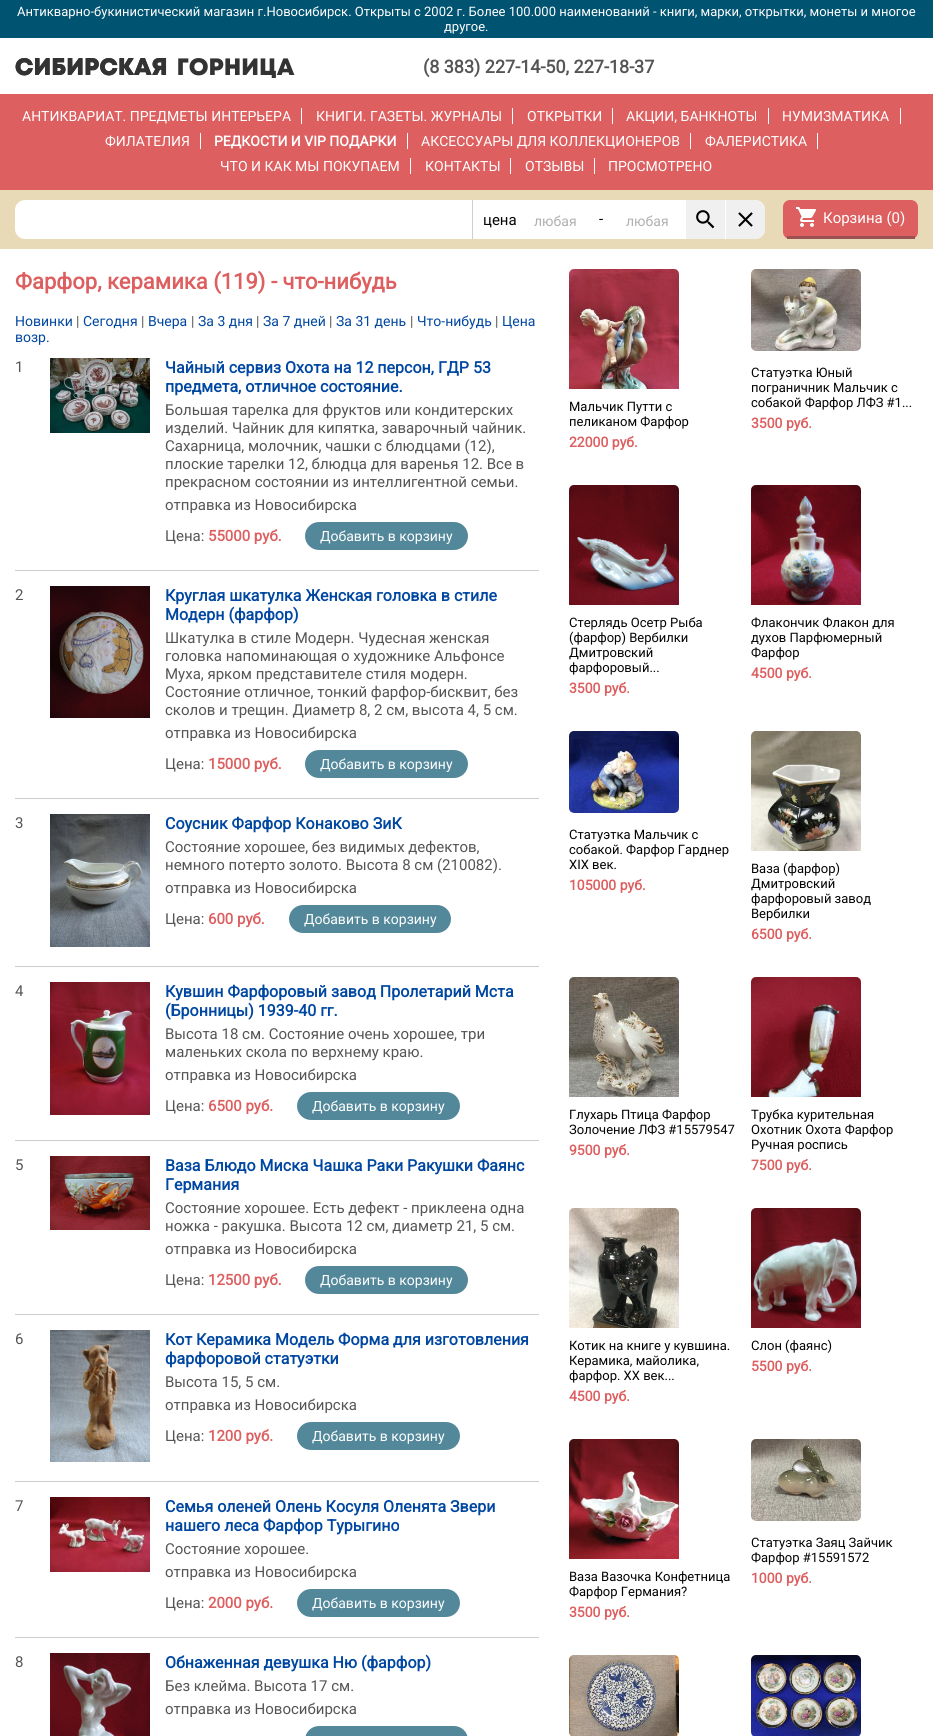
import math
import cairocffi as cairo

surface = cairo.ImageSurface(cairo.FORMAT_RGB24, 933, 1736)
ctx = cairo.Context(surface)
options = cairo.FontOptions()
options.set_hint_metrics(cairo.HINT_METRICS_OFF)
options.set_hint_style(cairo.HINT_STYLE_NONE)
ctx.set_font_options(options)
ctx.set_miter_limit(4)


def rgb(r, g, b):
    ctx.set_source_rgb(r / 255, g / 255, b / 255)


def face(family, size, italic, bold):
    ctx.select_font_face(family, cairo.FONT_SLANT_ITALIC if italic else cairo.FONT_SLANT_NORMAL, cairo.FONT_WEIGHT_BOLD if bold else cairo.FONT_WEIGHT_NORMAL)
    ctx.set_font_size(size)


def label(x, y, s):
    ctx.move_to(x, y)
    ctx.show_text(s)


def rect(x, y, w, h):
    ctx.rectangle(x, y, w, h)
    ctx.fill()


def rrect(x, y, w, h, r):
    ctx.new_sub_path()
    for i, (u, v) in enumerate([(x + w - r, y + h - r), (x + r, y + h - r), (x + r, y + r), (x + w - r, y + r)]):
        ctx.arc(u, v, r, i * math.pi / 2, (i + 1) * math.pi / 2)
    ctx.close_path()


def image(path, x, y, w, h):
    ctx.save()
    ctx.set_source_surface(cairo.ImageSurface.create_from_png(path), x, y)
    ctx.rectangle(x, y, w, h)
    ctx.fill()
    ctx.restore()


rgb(255, 255, 255)
ctx.paint()
rgb(0, 83, 113)
rect(0, 0, 933, 38)
face('Roboto', 13, 0, 0)
rgb(255, 255, 255)
label(17, 16, 'Антикварно-букинистический магазин г.Новосибирск. Открыты с 2002 г. Более 100.000 наименований - книги, марки, открытки, монеты и многое')
label(444, 31, 'другое.')
image('image0.png', 15, 58, 280, 20)
face('Roboto', 18, 0, 1)
rgb(85, 85, 85)
label(423, 73, '(8 383) 227-14-50, 227-18-37')
rgb(221, 95, 96)
rect(0, 94, 933, 96)
face('Roboto', 14, 0, 0)
rgb(255, 255, 255)
label(22, 121, 'АНТИКВАРИАТ. ПРЕДМЕТЫ ИНТЕРЬЕРА')
rect(301, 108, 1, 16)
label(316, 121, 'КНИГИ. ГАЗЕТЫ. ЖУРНАЛЫ')
rect(512, 108, 1, 16)
label(527, 121, 'ОТКРЫТКИ')
rect(612, 108, 1, 16)
label(626, 121, 'АКЦИИ, БАНКНОТЫ')
rect(768, 108, 1, 16)
label(782, 121, 'НУМИЗМАТИКА')
rect(900, 108, 1, 16)
label(105, 146, 'ФИЛАТЕЛИЯ')
rect(200, 133, 1, 16)
face('Roboto', 14, 0, 1)
label(214, 146, 'РЕДКОСТИ И VIP ПОДАРКИ')
rect(407, 133, 1, 16)
face('Roboto', 14, 0, 0)
label(421, 146, 'АКСЕССУАРЫ ДЛЯ КОЛЛЕКЦИОНЕРОВ')
rect(690, 133, 1, 16)
label(705, 146, 'ФАЛЕРИСТИКА')
rect(817, 133, 1, 16)
label(220, 171, 'ЧТО И КАК МЫ ПОКУПАЕМ')
rect(410, 158, 1, 16)
label(425, 171, 'КОНТАКТЫ')
rect(510, 158, 1, 16)
label(525, 171, 'ОТЗЫВЫ')
rect(594, 158, 1, 16)
label(608, 171, 'ПРОСМОТРЕНО')
rgb(232, 218, 183)
rect(0, 190, 933, 59)
rgb(255, 255, 255)
rrect(15, 200, 750, 39, 10)
ctx.fill()
rgb(207, 207, 207)
rect(472, 200, 1, 39)
face('Roboto', 15, 0, 0)
rgb(3, 3, 3)
label(483, 225, 'цена')
face('Roboto', 14, 0, 0)
rgb(176, 176, 176)
label(534, 226, 'любая')
face('Roboto', 15, 0, 0)
rgb(3, 3, 3)
label(599, 224, '-')
face('Roboto', 14, 0, 0)
rgb(176, 176, 176)
label(626, 226, 'любая')
rgb(240, 240, 240)
rect(686, 200, 39, 39)
image('image1.png', 696, 210, 19, 19)
ctx.new_path()
ctx.move_to(726, 200)
ctx.line_to(755, 200)
ctx.curve_to(760.5, 200, 765, 204.5, 765, 210)
ctx.line_to(765, 229)
ctx.curve_to(765, 234.5, 760.5, 239, 755, 239)
ctx.line_to(726, 239)
ctx.close_path()
ctx.fill()
image('image2.png', 738, 212, 15, 15)
rgb(221, 95, 96)
rrect(783, 200, 135, 39, 7)
ctx.fill()
rgb(155, 80, 81)
rect(787, 236, 128, 3)
image('image3.png', 796, 207, 20, 20)
face('Roboto', 15, 0, 0)
rgb(255, 255, 255)
label(823, 223, 'Корзина (0)')
face('Roboto', 22, 0, 1)
rgb(221, 95, 96)
label(15, 289, 'Фарфор, керамика (119) - что-нибудь')
face('Roboto', 14, 0, 0)
rgb(0, 71, 161)
label(15, 326, 'Новинки')
rgb(85, 85, 85)
label(76, 326, '|')
rgb(0, 71, 161)
label(83, 326, 'Сегодня')
rgb(85, 85, 85)
label(141, 326, '|')
rgb(0, 71, 161)
label(148, 326, 'Вчера')
rgb(85, 85, 85)
label(191, 326, '|')
rgb(0, 71, 161)
label(198, 326, 'За 3 дня')
rgb(85, 85, 85)
label(256, 326, '|')
rgb(0, 71, 161)
label(263, 326, 'За 7 дней')
rgb(85, 85, 85)
label(329, 326, '|')
rgb(0, 71, 161)
label(336, 326, 'За 31 день')
rgb(85, 85, 85)
label(410, 326, '|')
rgb(0, 71, 161)
label(417, 326, 'Что-нибудь')
rgb(85, 85, 85)
label(495, 326, '|')
rgb(0, 71, 161)
label(502, 326, 'Цена')
label(15, 342, 'возр.')
face('Roboto', 15, 0, 0)
rgb(85, 85, 85)
label(15, 372, '1')
image('image4.png', 50, 358, 100, 75)
face('Roboto', 16, 0, 1)
rgb(0, 71, 161)
label(165, 373, 'Чайный сервиз Охота на 12 персон, ГДР 53')
label(165, 392, 'предмета, отличное состояние.')
face('Roboto', 15, 0, 0)
rgb(85, 85, 85)
label(165, 415, 'Большая тарелка для фруктов или кондитерских')
label(165, 433, 'изделий. Чайник для кипятка, заварочный чайник.')
label(165, 451, 'Сахарница, молочник, чашки с блюдцами (12),')
label(165, 469, 'плоские тарелки 12, блюдца для варенья 12. Все в')
label(165, 487, 'прекрасном состоянии из интеллигентной семьи.')
label(165, 510, 'отправка из Новосибирска')
label(165, 541, 'Цена:')
face('Roboto', 15, 0, 1)
rgb(221, 95, 96)
label(208, 541, '55000 руб.')
rgb(83, 136, 155)
rrect(305, 522, 163, 28, 14)
ctx.fill()
face('Roboto', 14, 0, 0)
rgb(255, 255, 255)
label(320, 541, 'Добавить в корзину')
rgb(204, 204, 204)
rect(15, 570, 524, 1)
face('Roboto', 15, 0, 0)
rgb(85, 85, 85)
label(15, 600, '2')
image('image5.png', 50, 586, 100, 132)
face('Roboto', 16, 0, 1)
rgb(0, 71, 161)
label(165, 601, 'Круглая шкатулка Женская головка в стиле')
label(165, 620, 'Модерн (фарфор)')
face('Roboto', 15, 0, 0)
rgb(85, 85, 85)
label(165, 643, 'Шкатулка в стиле Модерн. Чудесная женская')
label(165, 661, 'головка напоминающая о художнике Альфонсе')
label(165, 679, 'Муха, ярком представителе стиля модерн.')
label(165, 697, 'Состояние отличное, тонкий фарфор-бисквит, без')
label(165, 715, 'сколов и трещин. Диаметр 8, 2 см, высота 4, 5 см.')
label(165, 738, 'отправка из Новосибирска')
label(165, 769, 'Цена:')
face('Roboto', 15, 0, 1)
rgb(221, 95, 96)
label(208, 769, '15000 руб.')
rgb(83, 136, 155)
rrect(305, 750, 163, 28, 14)
ctx.fill()
face('Roboto', 14, 0, 0)
rgb(255, 255, 255)
label(320, 769, 'Добавить в корзину')
rgb(204, 204, 204)
rect(15, 798, 524, 1)
face('Roboto', 15, 0, 0)
rgb(85, 85, 85)
label(15, 828, '3')
image('image6.png', 50, 814, 100, 133)
face('Roboto', 16, 0, 1)
rgb(0, 71, 161)
label(165, 829, 'Соусник Фарфор Конаково ЗиК')
face('Roboto', 15, 0, 0)
rgb(85, 85, 85)
label(165, 852, 'Состояние хорошее, без видимых дефектов,')
label(165, 870, 'немного потерто золото. Высота 8 см (210082).')
label(165, 893, 'отправка из Новосибирска')
label(165, 924, 'Цена:')
face('Roboto', 15, 0, 1)
rgb(221, 95, 96)
label(208, 924, '600 руб.')
rgb(83, 136, 155)
rrect(289, 905, 162, 28, 14)
ctx.fill()
face('Roboto', 14, 0, 0)
rgb(255, 255, 255)
label(304, 924, 'Добавить в корзину')
rgb(204, 204, 204)
rect(15, 966, 524, 1)
face('Roboto', 15, 0, 0)
rgb(85, 85, 85)
label(15, 996, '4')
image('image7.png', 50, 982, 100, 133)
face('Roboto', 16, 0, 1)
rgb(0, 71, 161)
label(165, 997, 'Кувшин Фарфоровый завод Пролетарий Мста')
label(165, 1016, '(Бронницы) 1939-40 гг.')
face('Roboto', 15, 0, 0)
rgb(85, 85, 85)
label(165, 1039, 'Высота 18 см. Состояние очень хорошее, три')
label(165, 1057, 'маленьких скола по верхнему краю.')
label(165, 1080, 'отправка из Новосибирска')
label(165, 1111, 'Цена:')
face('Roboto', 15, 0, 1)
rgb(221, 95, 96)
label(208, 1111, '6500 руб.')
rgb(83, 136, 155)
rrect(297, 1092, 163, 28, 14)
ctx.fill()
face('Roboto', 14, 0, 0)
rgb(255, 255, 255)
label(312, 1111, 'Добавить в корзину')
rgb(204, 204, 204)
rect(15, 1140, 524, 1)
face('Roboto', 15, 0, 0)
rgb(85, 85, 85)
label(15, 1170, '5')
image('image8.png', 50, 1156, 100, 74)
face('Roboto', 16, 0, 1)
rgb(0, 71, 161)
label(165, 1171, 'Ваза Блюдо Миска Чашка Раки Ракушки Фаянс')
label(165, 1190, 'Германия')
face('Roboto', 15, 0, 0)
rgb(85, 85, 85)
label(165, 1213, 'Состояние хорошее. Есть дефект - приклеена одна')
label(165, 1231, 'ножка - ракушка. Высота 12 см, диаметр 21, 5 см.')
label(165, 1254, 'отправка из Новосибирска')
label(165, 1285, 'Цена:')
face('Roboto', 15, 0, 1)
rgb(221, 95, 96)
label(208, 1285, '12500 руб.')
rgb(83, 136, 155)
rrect(305, 1266, 163, 28, 14)
ctx.fill()
face('Roboto', 14, 0, 0)
rgb(255, 255, 255)
label(320, 1285, 'Добавить в корзину')
rgb(204, 204, 204)
rect(15, 1314, 524, 1)
face('Roboto', 15, 0, 0)
rgb(85, 85, 85)
label(15, 1344, '6')
image('image9.png', 50, 1330, 100, 132)
face('Roboto', 16, 0, 1)
rgb(0, 71, 161)
label(165, 1345, 'Кот Керамика Модель Форма для изготовления')
label(165, 1364, 'фарфоровой статуэтки')
face('Roboto', 15, 0, 0)
rgb(85, 85, 85)
label(165, 1387, 'Высота 15, 5 см.')
label(165, 1410, 'отправка из Новосибирска')
label(165, 1441, 'Цена:')
face('Roboto', 15, 0, 1)
rgb(221, 95, 96)
label(208, 1441, '1200 руб.')
rgb(83, 136, 155)
rrect(297, 1422, 163, 28, 14)
ctx.fill()
face('Roboto', 14, 0, 0)
rgb(255, 255, 255)
label(312, 1441, 'Добавить в корзину')
rgb(204, 204, 204)
rect(15, 1481, 524, 1)
face('Roboto', 15, 0, 0)
rgb(85, 85, 85)
label(15, 1511, '7')
image('image10.png', 50, 1497, 100, 75)
face('Roboto', 16, 0, 1)
rgb(0, 71, 161)
label(165, 1512, 'Семья оленей Олень Косуля Оленята Звери')
label(165, 1531, 'нашего леса Фарфор Турыгино')
face('Roboto', 15, 0, 0)
rgb(85, 85, 85)
label(165, 1554, 'Состояние хорошее.')
label(165, 1577, 'отправка из Новосибирска')
label(165, 1608, 'Цена:')
face('Roboto', 15, 0, 1)
rgb(221, 95, 96)
label(208, 1608, '2000 руб.')
rgb(83, 136, 155)
rrect(297, 1589, 163, 28, 14)
ctx.fill()
face('Roboto', 14, 0, 0)
rgb(255, 255, 255)
label(312, 1608, 'Добавить в корзину')
rgb(204, 204, 204)
rect(15, 1637, 524, 1)
face('Roboto', 15, 0, 0)
rgb(85, 85, 85)
label(15, 1667, '8')
image('image11.png', 50, 1653, 100, 83)
face('Roboto', 16, 0, 1)
rgb(0, 71, 161)
label(165, 1668, 'Обнаженная девушка Ню (фарфор)')
face('Roboto', 15, 0, 0)
rgb(85, 85, 85)
label(165, 1691, 'Без клейма. Высота 17 см.')
label(165, 1714, 'отправка из Новосибирска')
rgb(83, 136, 155)
rrect(305, 1726, 163, 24, 14)
ctx.fill()
image('image12.png', 569, 269, 110, 120)
face('Roboto', 13, 0, 0)
rgb(3, 3, 3)
label(569, 411, 'Мальчик Путти с')
label(569, 426, 'пеликаном Фарфор')
face('Roboto', 14, 0, 1)
rgb(221, 95, 96)
label(569, 447, '22000 руб.')
image('image13.png', 751, 269, 110, 82)
face('Roboto', 13, 0, 0)
rgb(3, 3, 3)
label(751, 377, 'Статуэтка Юный')
label(751, 392, 'пограничник Мальчик с')
label(751, 407, 'собакой Фарфор ЛФЗ #1...')
face('Roboto', 14, 0, 1)
rgb(221, 95, 96)
label(751, 428, '3500 руб.')
image('image14.png', 569, 485, 110, 120)
face('Roboto', 13, 0, 0)
rgb(3, 3, 3)
label(569, 627, 'Стерлядь Осетр Рыба')
label(569, 642, '(фарфор) Вербилки')
label(569, 657, 'Дмитровский')
label(569, 672, 'фарфоровый...')
face('Roboto', 14, 0, 1)
rgb(221, 95, 96)
label(569, 693, '3500 руб.')
image('image15.png', 751, 485, 110, 120)
face('Roboto', 13, 0, 0)
rgb(3, 3, 3)
label(751, 627, 'Флакончик Флакон для')
label(751, 642, 'духов Парфюмерный')
label(751, 657, 'Фарфор')
face('Roboto', 14, 0, 1)
rgb(221, 95, 96)
label(751, 678, '4500 руб.')
image('image16.png', 569, 731, 110, 82)
face('Roboto', 13, 0, 0)
rgb(3, 3, 3)
label(569, 839, 'Статуэтка Мальчик с')
label(569, 854, 'собакой. Фарфор Гарднер')
label(569, 869, 'XIX век.')
face('Roboto', 14, 0, 1)
rgb(221, 95, 96)
label(569, 890, '105000 руб.')
image('image17.png', 751, 731, 110, 120)
face('Roboto', 13, 0, 0)
rgb(3, 3, 3)
label(751, 873, 'Ваза (фарфор)')
label(751, 888, 'Дмитровский')
label(751, 903, 'фарфоровый завод')
label(751, 918, 'Вербилки')
face('Roboto', 14, 0, 1)
rgb(221, 95, 96)
label(751, 939, '6500 руб.')
image('image18.png', 569, 977, 110, 120)
face('Roboto', 13, 0, 0)
rgb(3, 3, 3)
label(569, 1119, 'Глухарь Птица Фарфор')
label(569, 1134, 'Золочение ЛФЗ #15579547')
face('Roboto', 14, 0, 1)
rgb(221, 95, 96)
label(569, 1155, '9500 руб.')
image('image19.png', 751, 977, 110, 120)
face('Roboto', 13, 0, 0)
rgb(3, 3, 3)
label(751, 1119, 'Трубка курительная')
label(751, 1134, 'Охотник Охота Фарфор')
label(751, 1149, 'Ручная роспись')
face('Roboto', 14, 0, 1)
rgb(221, 95, 96)
label(751, 1170, '7500 руб.')
image('image20.png', 569, 1208, 110, 120)
face('Roboto', 13, 0, 0)
rgb(3, 3, 3)
label(569, 1350, 'Котик на книге у кувшина.')
label(569, 1365, 'Керамика, майолика,')
label(569, 1380, 'фарфор. ХХ век...')
face('Roboto', 14, 0, 1)
rgb(221, 95, 96)
label(569, 1401, '4500 руб.')
image('image21.png', 751, 1208, 110, 120)
face('Roboto', 13, 0, 0)
rgb(3, 3, 3)
label(751, 1350, 'Слон (фаянс)')
face('Roboto', 14, 0, 1)
rgb(221, 95, 96)
label(751, 1371, '5500 руб.')
image('image22.png', 751, 1439, 110, 82)
face('Roboto', 13, 0, 0)
rgb(3, 3, 3)
label(751, 1547, 'Статуэтка Заяц Зайчик')
label(751, 1562, 'Фарфор #15591572')
face('Roboto', 14, 0, 1)
rgb(221, 95, 96)
label(751, 1583, '1000 руб.')
image('image23.png', 569, 1439, 110, 120)
face('Roboto', 13, 0, 0)
rgb(3, 3, 3)
label(569, 1581, 'Ваза Вазочка Конфетница')
label(569, 1596, 'Фарфор Германия?')
face('Roboto', 14, 0, 1)
rgb(221, 95, 96)
label(569, 1617, '3500 руб.')
image('image24.png', 569, 1655, 110, 81)
image('image25.png', 751, 1655, 110, 81)
surface.write_to_png('render.png')
